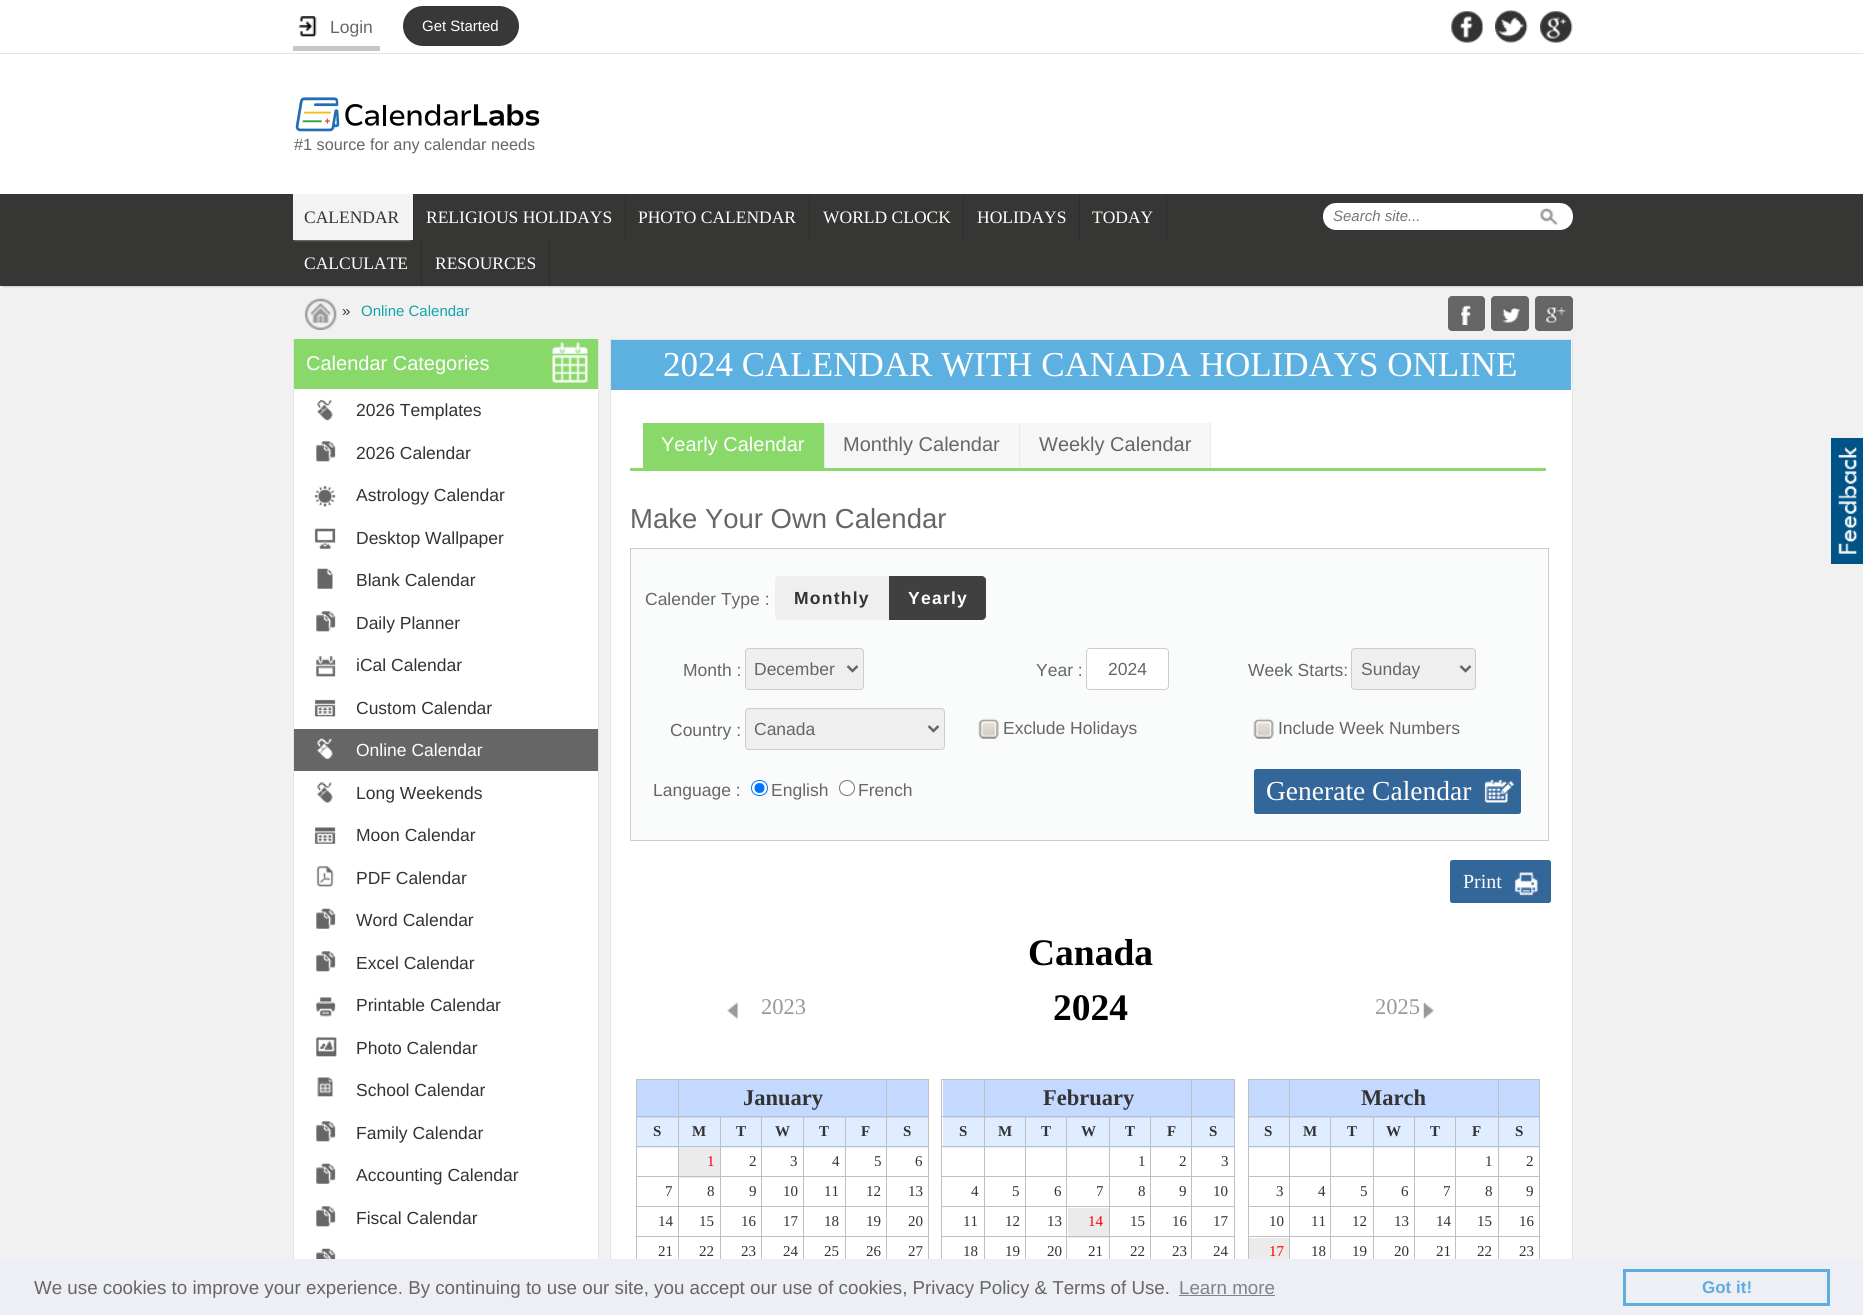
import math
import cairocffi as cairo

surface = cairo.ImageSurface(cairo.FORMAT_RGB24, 1863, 1315)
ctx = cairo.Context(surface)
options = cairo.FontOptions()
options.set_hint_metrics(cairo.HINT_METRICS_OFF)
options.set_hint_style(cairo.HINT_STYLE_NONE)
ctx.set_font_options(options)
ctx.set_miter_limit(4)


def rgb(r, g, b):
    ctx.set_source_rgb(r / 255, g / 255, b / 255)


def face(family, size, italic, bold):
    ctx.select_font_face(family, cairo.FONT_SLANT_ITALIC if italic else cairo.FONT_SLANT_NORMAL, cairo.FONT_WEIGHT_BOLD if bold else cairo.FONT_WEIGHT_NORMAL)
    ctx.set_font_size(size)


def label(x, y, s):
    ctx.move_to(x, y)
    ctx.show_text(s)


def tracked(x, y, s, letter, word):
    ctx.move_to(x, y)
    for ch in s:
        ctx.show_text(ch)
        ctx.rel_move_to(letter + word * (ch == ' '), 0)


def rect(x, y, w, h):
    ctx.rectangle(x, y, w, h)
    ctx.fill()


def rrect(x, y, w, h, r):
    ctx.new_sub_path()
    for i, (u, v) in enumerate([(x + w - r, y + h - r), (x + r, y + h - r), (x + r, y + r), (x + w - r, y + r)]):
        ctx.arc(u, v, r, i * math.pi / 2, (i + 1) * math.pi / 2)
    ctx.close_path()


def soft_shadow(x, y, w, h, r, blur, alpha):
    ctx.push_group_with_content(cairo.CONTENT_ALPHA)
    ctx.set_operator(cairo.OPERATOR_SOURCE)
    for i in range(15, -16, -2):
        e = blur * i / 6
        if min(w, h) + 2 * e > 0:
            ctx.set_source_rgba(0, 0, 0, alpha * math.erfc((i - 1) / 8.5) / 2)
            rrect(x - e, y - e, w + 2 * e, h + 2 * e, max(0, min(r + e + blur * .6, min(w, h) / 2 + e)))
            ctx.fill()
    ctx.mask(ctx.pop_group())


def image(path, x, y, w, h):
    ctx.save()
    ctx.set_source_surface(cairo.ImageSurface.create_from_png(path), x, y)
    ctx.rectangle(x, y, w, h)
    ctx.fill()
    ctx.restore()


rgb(241, 241, 241)
ctx.paint()
rgb(255, 255, 255)
rect(0, 0, 1863, 194)
rgb(228, 228, 228)
rect(0, 53, 1863, 1)
rgb(198, 198, 198)
rect(293, 46, 87, 5)
image('image0.png', 298, 16, 19, 21)
face('Liberation Sans', 17.5, 0, 0)
rgb(102, 102, 102)
label(330, 33, 'Login')
rgb(56, 56, 56)
rrect(403, 6, 116, 40, 20)
ctx.fill()
face('Liberation Sans', 15, 0, 0)
rgb(255, 255, 255)
label(422, 31, 'Get Started')
image('image1.png', 1451, 11, 32, 32)
image('image2.png', 1495, 10, 33, 33)
image('image3.png', 1540, 11, 33, 32)
image('image4.png', 295, 97, 245, 35)
face('Liberation Sans', 16.25, 0, 0)
rgb(102, 102, 102)
label(294, 150, '#1 source for any calendar needs')
rgb(153, 153, 153)
soft_shadow(3, 199, 1858, 87, 0, 1, 1)
rgb(54, 54, 53)
rect(0, 194, 1863, 92)
rgb(44, 44, 44)
rect(413, 194, 1, 46)
rgb(204, 204, 204)
soft_shadow(295, 199, 115, 41, 0, 1, 1)
rgb(244, 243, 243)
rect(293, 194, 120, 46)
face('Liberation Serif', 17.5, 0, 0)
rgb(51, 51, 51)
label(304, 223, 'CALENDAR')
rgb(44, 44, 44)
rect(625, 194, 1, 46)
rgb(255, 255, 255)
label(426, 223, 'RELIGIOUS HOLIDAYS')
rgb(44, 44, 44)
rect(809, 194, 1, 46)
rgb(255, 255, 255)
label(638, 223, 'PHOTO CALENDAR')
rgb(44, 44, 44)
rect(963, 194, 1, 46)
rgb(255, 255, 255)
label(823, 223, 'WORLD CLOCK')
rgb(44, 44, 44)
rect(1079, 194, 1, 46)
rgb(255, 255, 255)
label(977, 223, 'HOLIDAYS')
rgb(44, 44, 44)
rect(1166, 194, 1, 46)
rgb(255, 255, 255)
label(1092, 223, 'TODAY')
rgb(44, 44, 44)
rect(421, 240, 1, 46)
rgb(255, 255, 255)
label(304, 269, 'CALCULATE')
rgb(44, 44, 44)
rect(549, 240, 1, 46)
rgb(255, 255, 255)
label(435, 269, 'RESOURCES')
rrect(1323, 203, 250, 27, 13)
ctx.fill()
face('Liberation Sans', 15, 1, 0)
rgb(117, 117, 117)
label(1333, 221, 'Search site...')
image('image5.png', 1540, 208, 18, 18)
image('image6.png', 304, 298, 33, 32)
face('Liberation Sans', 15, 0, 0)
rgb(51, 51, 51)
label(342, 316, '»')
rgb(21, 162, 172)
label(361, 316, 'Online Calendar')
rgb(102, 102, 102)
rrect(1448, 296, 37, 35, 4)
ctx.fill()
image('image7.png', 1460, 305, 12, 20)
rrect(1491, 296, 38, 35, 4)
ctx.fill()
image('image8.png', 1502, 306, 19, 17)
rrect(1535, 296, 38, 35, 4)
ctx.fill()
image('image9.png', 1545, 305, 21, 18)
rgb(0, 83, 135)
rect(1831, 438, 32, 126)
image('image10.png', 1838, 447, 20, 107)
rgb(255, 255, 255)
rect(294, 389, 304, 870)
rgb(228, 228, 228)
rect(598, 339, 1, 920)
rect(293, 339, 1, 920)
rgb(136, 216, 106)
rect(294, 339, 304, 50)
face('Liberation Sans', 20, 0, 0)
rgb(255, 255, 255)
label(306, 370, 'Calendar Categories')
image('image11.png', 552, 342, 36, 41)
image('image12.png', 317, 399, 16, 22)
face('Liberation Sans', 17.5, 0, 0)
rgb(51, 51, 51)
label(356, 416, '2026 Templates')
image('image13.png', 316, 441, 20, 21)
label(356, 459, '2026 Calendar')
image('image14.png', 314, 486, 22, 21)
label(356, 501, 'Astrology Calendar')
image('image15.png', 314, 528, 22, 21)
label(356, 544, 'Desktop Wallpaper')
image('image16.png', 317, 568, 16, 21)
label(356, 586, 'Blank Calendar')
image('image13.png', 316, 611, 20, 21)
label(356, 629, 'Daily Planner')
image('image17.png', 316, 656, 20, 21)
label(356, 671, 'iCal Calendar')
image('image18.png', 314, 699, 22, 18)
label(356, 714, 'Custom Calendar')
rgb(102, 102, 102)
rect(294, 729, 304, 42)
image('image19.png', 317, 738, 16, 21)
rgb(255, 255, 255)
label(356, 756, 'Online Calendar')
image('image20.png', 317, 782, 16, 21)
rgb(51, 51, 51)
label(356, 799, 'Long Weekends')
image('image21.png', 314, 827, 22, 17)
label(356, 841, 'Moon Calendar')
image('image22.png', 316, 866, 18, 21)
label(356, 884, 'PDF Calendar')
image('image23.png', 316, 908, 20, 21)
label(356, 926, 'Word Calendar')
image('image13.png', 316, 951, 20, 21)
label(356, 969, 'Excel Calendar')
image('image24.png', 316, 997, 20, 20)
label(356, 1011, 'Printable Calendar')
image('image25.png', 316, 1037, 21, 20)
label(356, 1054, 'Photo Calendar')
image('image26.png', 317, 1077, 16, 20)
label(356, 1096, 'School Calendar')
image('image13.png', 316, 1121, 20, 21)
label(356, 1139, 'Family Calendar')
image('image27.png', 316, 1163, 20, 21)
label(356, 1181, 'Accounting Calendar')
image('image13.png', 316, 1206, 20, 21)
label(356, 1224, 'Fiscal Calendar')
image('image28.png', 316, 1248, 20, 11)
rgb(255, 255, 255)
rect(611, 340, 961, 919)
ctx.rectangle(610.5, 339.5, 962, 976)
rgb(228, 228, 228)
ctx.set_line_width(1)
ctx.stroke()
rgb(92, 177, 225)
rect(611, 340, 960, 50)
face('Liberation Serif', 35, 0, 0)
rgb(255, 255, 255)
label(663, 376, '2024 CALENDAR WITH CANADA HOLIDAYS ONLINE')
rgb(136, 216, 106)
rect(630, 468, 916, 3)
rgb(234, 234, 234)
rect(824, 423, 1, 45)
rgb(136, 216, 106)
rect(643, 423, 181, 45)
face('Liberation Sans', 20, 0, 0)
rgb(255, 255, 255)
label(661, 451, 'Yearly Calendar')
rgb(234, 234, 234)
rect(1019, 423, 1, 45)
rgb(246, 246, 246)
rect(825, 423, 194, 45)
rgb(102, 102, 102)
label(843, 451, 'Monthly Calendar')
rgb(234, 234, 234)
rect(1210, 423, 1, 45)
rgb(246, 246, 246)
rect(1020, 423, 190, 45)
rgb(102, 102, 102)
label(1039, 451, 'Weekly Calendar')
face('Liberation Sans', 27.5, 0, 0)
label(630, 528, 'Make Your Own Calendar')
rgb(249, 252, 250)
ctx.rectangle(630.5, 548.5, 918, 292)
ctx.fill_preserve()
rgb(204, 204, 204)
ctx.stroke()
face('Liberation Sans', 17.5, 0, 0)
rgb(102, 102, 102)
label(645, 605, 'Calender Type :')
rgb(239, 239, 239)
ctx.new_path()
ctx.move_to(779, 576)
ctx.line_to(889, 576)
ctx.line_to(889, 620)
ctx.line_to(779, 620)
ctx.curve_to(777, 620, 775, 618, 775, 616)
ctx.line_to(775, 580)
ctx.curve_to(775, 578, 777, 576, 779, 576)
ctx.close_path()
ctx.fill()
face('Liberation Sans', 17.5, 0, 1)
rgb(51, 51, 51)
tracked(794, 604, 'Monthly', 1.25, 0)
rgb(64, 64, 64)
ctx.new_path()
ctx.move_to(889, 576)
ctx.line_to(982, 576)
ctx.curve_to(984, 576, 986, 578, 986, 580)
ctx.line_to(986, 616)
ctx.curve_to(986, 618, 984, 620, 982, 620)
ctx.line_to(889, 620)
ctx.close_path()
ctx.fill()
rgb(255, 255, 255)
tracked(908, 604, 'Yearly', 1.25, 0)
face('Liberation Sans', 17.5, 0, 0)
rgb(102, 102, 102)
label(683, 676, 'Month :')
rgb(239, 239, 239)
rrect(745.5, 648.5, 118, 41, 3.5)
ctx.fill_preserve()
rgb(204, 204, 204)
ctx.stroke()
ctx.new_path()
ctx.move_to(847.5, 666)
ctx.line_to(852.5, 671)
ctx.line_to(857.5, 666)
rgb(102, 102, 102)
ctx.set_line_width(2.5)
ctx.stroke()
label(754, 675, 'December')
label(670, 736, 'Country :')
rgb(239, 239, 239)
rrect(745.5, 708.5, 199, 41, 3.5)
ctx.fill_preserve()
rgb(204, 204, 204)
ctx.set_line_width(1)
ctx.stroke()
ctx.new_path()
ctx.move_to(928.5, 726)
ctx.line_to(933.5, 731)
ctx.line_to(938.5, 726)
rgb(102, 102, 102)
ctx.set_line_width(2.5)
ctx.stroke()
label(754, 735, 'Canada')
label(653, 796, 'Language :')
rgb(255, 255, 255)
rrect(751.5, 780.5, 16, 15, 7.5)
ctx.fill_preserve()
rgb(0, 117, 255)
ctx.set_line_width(1)
ctx.stroke()
ctx.arc(759.5, 788, 5, 0, 2 * math.pi)
ctx.fill()
rgb(102, 102, 102)
label(771, 796, 'English')
rgb(255, 255, 255)
ctx.new_path()
ctx.arc(847, 788, 7.5, 0, 2 * math.pi)
ctx.fill_preserve()
rgb(118, 118, 118)
ctx.stroke()
rgb(102, 102, 102)
label(858, 796, 'French')
label(1036, 676, 'Year :')
rgb(255, 255, 255)
rrect(1086.5, 648.5, 82, 41, 3.5)
ctx.fill_preserve()
rgb(204, 204, 204)
ctx.stroke()
rgb(102, 102, 102)
label(1108, 675, '2024')
image('image29.png', 978, 718, 21, 21)
label(1003, 734, 'Exclude Holidays')
label(1248, 676, 'Week Starts:')
rgb(239, 239, 239)
rrect(1351.5, 648.5, 124, 41, 3.5)
ctx.fill_preserve()
rgb(204, 204, 204)
ctx.stroke()
ctx.new_path()
ctx.move_to(1460.5, 666)
ctx.line_to(1465.5, 671)
ctx.line_to(1470.5, 666)
rgb(102, 102, 102)
ctx.set_line_width(2.5)
ctx.stroke()
label(1361, 675, 'Sunday')
image('image30.png', 1253, 718, 21, 21)
label(1278, 734, 'Include Week Numbers')
rgb(51, 102, 153)
rrect(1254, 769, 267, 45, 2.5)
ctx.fill()
image('image31.png', 1484, 779, 30, 24)
face('Liberation Serif', 27.5, 0, 0)
rgb(255, 255, 255)
label(1266, 800, 'Generate Calendar')
rgb(51, 102, 153)
rrect(1450, 860, 101, 43, 2.5)
ctx.fill()
image('image32.png', 1514, 872, 24, 24)
face('Liberation Serif', 20, 0, 0)
rgb(255, 255, 255)
label(1463, 888, 'Print')
face('Liberation Serif', 37.5, 0, 1)
rgb(0, 0, 0)
label(1028, 965, 'Canada')
image('image33.png', 727, 1002, 11, 17)
face('Liberation Serif', 22.5, 0, 0)
rgb(153, 153, 153)
label(761, 1014, '2023')
face('Liberation Serif', 37.5, 0, 1)
rgb(0, 0, 0)
label(1053, 1020, '2024')
image('image34.png', 1423, 1002, 11, 17)
face('Liberation Serif', 22.5, 0, 0)
rgb(153, 153, 153)
label(1375, 1014, '2025')
rgb(195, 217, 255)
rect(637, 1080, 41, 38)
rgb(192, 192, 192)
rect(886, 1079, 43, 1)
rgb(195, 217, 255)
rect(679, 1080, 207, 38)
rect(887, 1080, 41, 38)
rgb(192, 192, 192)
rect(886, 1116, 43, 1)
rgb(224, 236, 255)
rect(846, 1118, 40, 30)
rect(887, 1118, 41, 30)
rgb(192, 192, 192)
rect(886, 1146, 43, 1)
rect(886, 1176, 43, 1)
rect(886, 1206, 43, 1)
rect(886, 1236, 43, 1)
rect(886, 1236, 1, 23)
rect(845, 1236, 43, 1)
rect(886, 1206, 1, 32)
rect(845, 1206, 43, 1)
rect(886, 1176, 1, 32)
rect(845, 1176, 43, 1)
rect(886, 1146, 1, 32)
rect(845, 1146, 43, 1)
rect(886, 1116, 1, 32)
rect(845, 1116, 43, 1)
rect(886, 1079, 1, 39)
rect(678, 1079, 210, 1)
rgb(224, 236, 255)
rect(804, 1118, 41, 30)
rgb(192, 192, 192)
rect(845, 1236, 1, 23)
rect(803, 1236, 43, 1)
rect(845, 1206, 1, 32)
rect(803, 1206, 43, 1)
rect(845, 1176, 1, 32)
rect(803, 1176, 43, 1)
rect(845, 1146, 1, 32)
rect(803, 1146, 43, 1)
rect(845, 1116, 1, 32)
rect(803, 1116, 43, 1)
rgb(224, 236, 255)
rect(762, 1118, 41, 30)
rgb(192, 192, 192)
rect(803, 1236, 1, 23)
rect(761, 1236, 43, 1)
rect(803, 1206, 1, 32)
rect(761, 1206, 43, 1)
rect(803, 1176, 1, 32)
rect(761, 1176, 43, 1)
rect(803, 1146, 1, 32)
rect(761, 1146, 43, 1)
rect(803, 1116, 1, 32)
rect(761, 1116, 43, 1)
rgb(224, 236, 255)
rect(721, 1118, 40, 30)
rgb(192, 192, 192)
rect(761, 1236, 1, 23)
rect(720, 1236, 43, 1)
rect(761, 1206, 1, 32)
rect(720, 1206, 43, 1)
rect(761, 1176, 1, 32)
rect(720, 1176, 43, 1)
rect(761, 1146, 1, 32)
rect(720, 1146, 43, 1)
rect(761, 1116, 1, 32)
rect(720, 1116, 43, 1)
rgb(224, 236, 255)
rect(679, 1118, 41, 30)
rgb(235, 235, 235)
rect(679, 1148, 41, 30)
rgb(192, 192, 192)
rect(720, 1236, 1, 23)
rect(678, 1236, 43, 1)
rect(720, 1206, 1, 32)
rect(678, 1206, 43, 1)
rect(720, 1176, 1, 32)
rect(678, 1176, 43, 1)
rect(720, 1146, 1, 32)
rect(678, 1146, 43, 1)
rect(720, 1116, 1, 32)
rect(678, 1116, 43, 1)
rgb(224, 236, 255)
rect(637, 1118, 41, 30)
rgb(192, 192, 192)
rect(678, 1236, 1, 23)
rect(636, 1236, 43, 1)
rect(678, 1206, 1, 32)
rect(636, 1206, 43, 1)
rect(678, 1176, 1, 32)
rect(636, 1176, 43, 1)
rect(678, 1146, 1, 32)
rect(636, 1146, 43, 1)
rect(678, 1116, 1, 32)
rect(636, 1116, 43, 1)
rect(678, 1079, 1, 39)
rect(636, 1079, 43, 1)
rect(636, 1236, 1, 23)
rect(636, 1206, 1, 32)
rect(636, 1176, 1, 32)
rect(636, 1146, 1, 32)
rect(636, 1116, 1, 32)
rect(636, 1079, 1, 39)
face('Liberation Serif', 22.5, 0, 1)
rgb(51, 51, 51)
label(743, 1105, 'January')
rgb(192, 192, 192)
rect(928, 1236, 1, 23)
rect(928, 1206, 1, 32)
rect(928, 1176, 1, 32)
rect(928, 1146, 1, 32)
rect(928, 1116, 1, 32)
rect(928, 1079, 1, 39)
face('Liberation Serif', 15, 0, 1)
rgb(51, 51, 51)
label(653, 1136, 'S')
label(692, 1136, 'M')
label(736, 1136, 'T')
label(775, 1136, 'W')
label(819, 1136, 'T')
label(861, 1136, 'F')
label(903, 1136, 'S')
face('Liberation Serif', 15, 0, 0)
rgb(255, 0, 0)
label(707, 1166, '1')
rgb(51, 51, 51)
label(749, 1166, '2')
label(790, 1166, '3')
label(832, 1166, '4')
label(874, 1166, '5')
label(915, 1166, '6')
label(665, 1196, '7')
label(707, 1196, '8')
label(749, 1196, '9')
label(783, 1196, '10')
label(824, 1196, '11')
label(866, 1196, '12')
label(908, 1196, '13')
label(658, 1226, '14')
label(699, 1226, '15')
label(741, 1226, '16')
label(783, 1226, '17')
label(824, 1226, '18')
label(866, 1226, '19')
label(908, 1226, '20')
label(658, 1256, '21')
label(699, 1256, '22')
label(741, 1256, '23')
label(783, 1256, '24')
label(824, 1256, '25')
label(866, 1256, '26')
label(908, 1256, '27')
rgb(195, 217, 255)
rect(943, 1080, 41, 38)
rgb(192, 192, 192)
rect(1191, 1079, 44, 1)
rgb(195, 217, 255)
rect(985, 1080, 249, 38)
rgb(192, 192, 192)
rect(1191, 1116, 44, 1)
rgb(224, 236, 255)
rect(1151, 1118, 83, 30)
rgb(192, 192, 192)
rect(1191, 1146, 44, 1)
rect(1191, 1176, 44, 1)
rect(1191, 1206, 44, 1)
rect(1191, 1236, 44, 1)
rect(1191, 1236, 1, 23)
rect(1150, 1236, 43, 1)
rect(1191, 1206, 1, 32)
rect(1150, 1206, 43, 1)
rect(1191, 1176, 1, 32)
rect(1150, 1176, 43, 1)
rect(1191, 1146, 1, 32)
rect(1150, 1146, 43, 1)
rect(1191, 1116, 1, 32)
rect(1150, 1116, 43, 1)
rect(1191, 1079, 1, 39)
rect(984, 1079, 209, 1)
rgb(224, 236, 255)
rect(1110, 1118, 40, 30)
rgb(192, 192, 192)
rect(1150, 1236, 1, 23)
rect(1109, 1236, 42, 1)
rect(1150, 1206, 1, 32)
rect(1109, 1206, 42, 1)
rect(1150, 1176, 1, 32)
rect(1109, 1176, 42, 1)
rect(1150, 1146, 1, 32)
rect(1109, 1146, 42, 1)
rect(1150, 1116, 1, 32)
rect(1109, 1116, 42, 1)
rgb(224, 236, 255)
rect(1026, 1118, 83, 30)
rgb(235, 235, 235)
rect(1068, 1208, 41, 30)
rgb(192, 192, 192)
rect(1109, 1236, 1, 23)
rect(1066, 1236, 44, 1)
rect(1109, 1206, 1, 32)
rect(1066, 1206, 44, 1)
rect(1109, 1176, 1, 32)
rect(1066, 1176, 44, 1)
rect(1109, 1146, 1, 32)
rect(1066, 1146, 44, 1)
rect(1109, 1116, 1, 32)
rect(1066, 1116, 44, 1)
rect(1066, 1236, 1, 23)
rect(1025, 1236, 43, 1)
rect(1066, 1206, 1, 32)
rect(1025, 1206, 43, 1)
rect(1066, 1176, 1, 32)
rect(1025, 1176, 43, 1)
rect(1066, 1146, 1, 32)
rect(1025, 1146, 43, 1)
rect(1066, 1116, 1, 32)
rect(1025, 1116, 43, 1)
rgb(224, 236, 255)
rect(985, 1118, 40, 30)
rgb(192, 192, 192)
rect(1025, 1236, 1, 23)
rect(984, 1236, 42, 1)
rect(1025, 1206, 1, 32)
rect(984, 1206, 42, 1)
rect(1025, 1176, 1, 32)
rect(984, 1176, 42, 1)
rect(1025, 1146, 1, 32)
rect(984, 1146, 42, 1)
rect(1025, 1116, 1, 32)
rect(984, 1116, 42, 1)
rgb(224, 236, 255)
rect(943, 1118, 41, 30)
rgb(192, 192, 192)
rect(984, 1236, 1, 23)
rect(941, 1236, 44, 1)
rect(984, 1206, 1, 32)
rect(941, 1206, 44, 1)
rect(984, 1176, 1, 32)
rect(941, 1176, 44, 1)
rect(984, 1146, 1, 32)
rect(941, 1146, 44, 1)
rect(984, 1116, 1, 32)
rect(941, 1116, 44, 1)
rect(984, 1079, 1, 39)
rect(941, 1079, 44, 1)
rect(941, 1236, 1, 23)
rect(941, 1206, 1, 32)
rect(941, 1176, 1, 32)
rect(941, 1146, 1, 32)
rect(941, 1116, 1, 32)
rect(941, 1079, 1, 39)
face('Liberation Serif', 22.5, 0, 1)
rgb(51, 51, 51)
label(1043, 1105, 'February')
rgb(192, 192, 192)
rect(1234, 1236, 1, 23)
rect(1234, 1206, 1, 32)
rect(1234, 1176, 1, 32)
rect(1234, 1146, 1, 32)
rect(1234, 1116, 1, 32)
rect(1234, 1079, 1, 39)
face('Liberation Serif', 15, 0, 1)
rgb(51, 51, 51)
label(959, 1136, 'S')
label(998, 1136, 'M')
label(1041, 1136, 'T')
label(1081, 1136, 'W')
label(1125, 1136, 'T')
label(1167, 1136, 'F')
label(1209, 1136, 'S')
face('Liberation Serif', 15, 0, 0)
label(1138, 1166, '1')
label(1179, 1166, '2')
label(1221, 1166, '3')
label(971, 1196, '4')
label(1012, 1196, '5')
label(1054, 1196, '6')
label(1096, 1196, '7')
label(1138, 1196, '8')
label(1179, 1196, '9')
label(1213, 1196, '10')
label(963, 1226, '11')
label(1005, 1226, '12')
label(1047, 1226, '13')
rgb(255, 0, 0)
label(1088, 1226, '14')
rgb(51, 51, 51)
label(1130, 1226, '15')
label(1172, 1226, '16')
label(1213, 1226, '17')
label(963, 1256, '18')
label(1005, 1256, '19')
label(1047, 1256, '20')
label(1088, 1256, '21')
label(1130, 1256, '22')
label(1172, 1256, '23')
label(1213, 1256, '24')
rgb(195, 217, 255)
rect(1249, 1080, 40, 38)
rgb(192, 192, 192)
rect(1498, 1079, 42, 1)
rgb(195, 217, 255)
rect(1290, 1080, 208, 38)
rect(1499, 1080, 40, 38)
rgb(192, 192, 192)
rect(1498, 1116, 42, 1)
rgb(224, 236, 255)
rect(1456, 1118, 42, 30)
rect(1499, 1118, 40, 30)
rgb(192, 192, 192)
rect(1498, 1146, 42, 1)
rect(1498, 1176, 42, 1)
rect(1498, 1206, 42, 1)
rect(1498, 1236, 42, 1)
rect(1498, 1236, 1, 23)
rect(1455, 1236, 44, 1)
rect(1498, 1206, 1, 32)
rect(1455, 1206, 44, 1)
rect(1498, 1176, 1, 32)
rect(1455, 1176, 44, 1)
rect(1498, 1146, 1, 32)
rect(1455, 1146, 44, 1)
rect(1498, 1116, 1, 32)
rect(1455, 1116, 44, 1)
rect(1498, 1079, 1, 39)
rect(1289, 1079, 210, 1)
rgb(224, 236, 255)
rect(1415, 1118, 40, 30)
rgb(192, 192, 192)
rect(1455, 1236, 1, 23)
rect(1414, 1236, 42, 1)
rect(1455, 1206, 1, 32)
rect(1414, 1206, 42, 1)
rect(1455, 1176, 1, 32)
rect(1414, 1176, 42, 1)
rect(1455, 1146, 1, 32)
rect(1414, 1146, 42, 1)
rect(1455, 1116, 1, 32)
rect(1414, 1116, 42, 1)
rgb(224, 236, 255)
rect(1374, 1118, 40, 30)
rgb(192, 192, 192)
rect(1414, 1236, 1, 23)
rect(1373, 1236, 42, 1)
rect(1414, 1206, 1, 32)
rect(1373, 1206, 42, 1)
rect(1414, 1176, 1, 32)
rect(1373, 1176, 42, 1)
rect(1414, 1146, 1, 32)
rect(1373, 1146, 42, 1)
rect(1414, 1116, 1, 32)
rect(1373, 1116, 42, 1)
rgb(224, 236, 255)
rect(1331, 1118, 42, 30)
rgb(192, 192, 192)
rect(1373, 1236, 1, 23)
rect(1330, 1236, 44, 1)
rect(1373, 1206, 1, 32)
rect(1330, 1206, 44, 1)
rect(1373, 1176, 1, 32)
rect(1330, 1176, 44, 1)
rect(1373, 1146, 1, 32)
rect(1330, 1146, 44, 1)
rect(1373, 1116, 1, 32)
rect(1330, 1116, 44, 1)
rgb(224, 236, 255)
rect(1290, 1118, 40, 30)
rgb(192, 192, 192)
rect(1330, 1236, 1, 23)
rect(1289, 1236, 42, 1)
rect(1330, 1206, 1, 32)
rect(1289, 1206, 42, 1)
rect(1330, 1176, 1, 32)
rect(1289, 1176, 42, 1)
rect(1330, 1146, 1, 32)
rect(1289, 1146, 42, 1)
rect(1330, 1116, 1, 32)
rect(1289, 1116, 42, 1)
rgb(224, 236, 255)
rect(1249, 1118, 40, 30)
rgb(192, 192, 192)
rect(1289, 1236, 1, 23)
rect(1248, 1236, 42, 1)
rect(1289, 1206, 1, 32)
rect(1248, 1206, 42, 1)
rect(1289, 1176, 1, 32)
rect(1248, 1176, 42, 1)
rect(1289, 1146, 1, 32)
rect(1248, 1146, 42, 1)
rect(1289, 1116, 1, 32)
rect(1248, 1116, 42, 1)
rect(1289, 1079, 1, 39)
rect(1248, 1079, 42, 1)
rect(1248, 1236, 1, 23)
rect(1248, 1206, 1, 32)
rect(1248, 1176, 1, 32)
rect(1248, 1146, 1, 32)
rect(1248, 1116, 1, 32)
rect(1248, 1079, 1, 39)
face('Liberation Serif', 22.5, 0, 1)
rgb(51, 51, 51)
label(1361, 1105, 'March')
rgb(192, 192, 192)
rect(1539, 1236, 1, 23)
rect(1539, 1206, 1, 32)
rect(1539, 1176, 1, 32)
rect(1539, 1146, 1, 32)
rect(1539, 1116, 1, 32)
rect(1539, 1079, 1, 39)
face('Liberation Serif', 15, 0, 1)
rgb(51, 51, 51)
label(1264, 1136, 'S')
label(1303, 1136, 'M')
label(1347, 1136, 'T')
label(1386, 1136, 'W')
label(1430, 1136, 'T')
label(1472, 1136, 'F')
label(1515, 1136, 'S')
face('Liberation Serif', 15, 0, 0)
label(1485, 1166, '1')
label(1526, 1166, '2')
label(1276, 1196, '3')
label(1318, 1196, '4')
label(1360, 1196, '5')
label(1401, 1196, '6')
label(1443, 1196, '7')
label(1485, 1196, '8')
label(1526, 1196, '9')
label(1269, 1226, '10')
label(1311, 1226, '11')
label(1352, 1226, '12')
label(1394, 1226, '13')
label(1436, 1226, '14')
label(1477, 1226, '15')
label(1519, 1226, '16')
rgb(235, 235, 235)
rect(1249, 1238, 40, 21)
rgb(255, 0, 0)
label(1269, 1256, '17')
rgb(51, 51, 51)
label(1311, 1256, '18')
label(1352, 1256, '19')
label(1394, 1256, '20')
label(1436, 1256, '21')
label(1477, 1256, '22')
label(1519, 1256, '23')
rgb(237, 239, 245)
rect(0, 1259, 1863, 56)
face('Liberation Sans', 18.75, 0, 0)
rgb(102, 102, 102)
label(34, 1294, 'We use cookies to improve your experience. By continuing to use our site, you accept our use of cookies, Privacy Policy & Terms of Use.')
rgb(129, 130, 135)
label(1179, 1294, 'Learn more')
rect(1179, 1295, 96, 1)
ctx.rectangle(1624.5, 1270.5, 204, 34)
rgb(93, 173, 226)
ctx.set_line_width(3)
ctx.stroke()
face('Liberation Sans', 17, 0, 1)
label(1702, 1293, 'Got it!')
surface.write_to_png('render.png')
